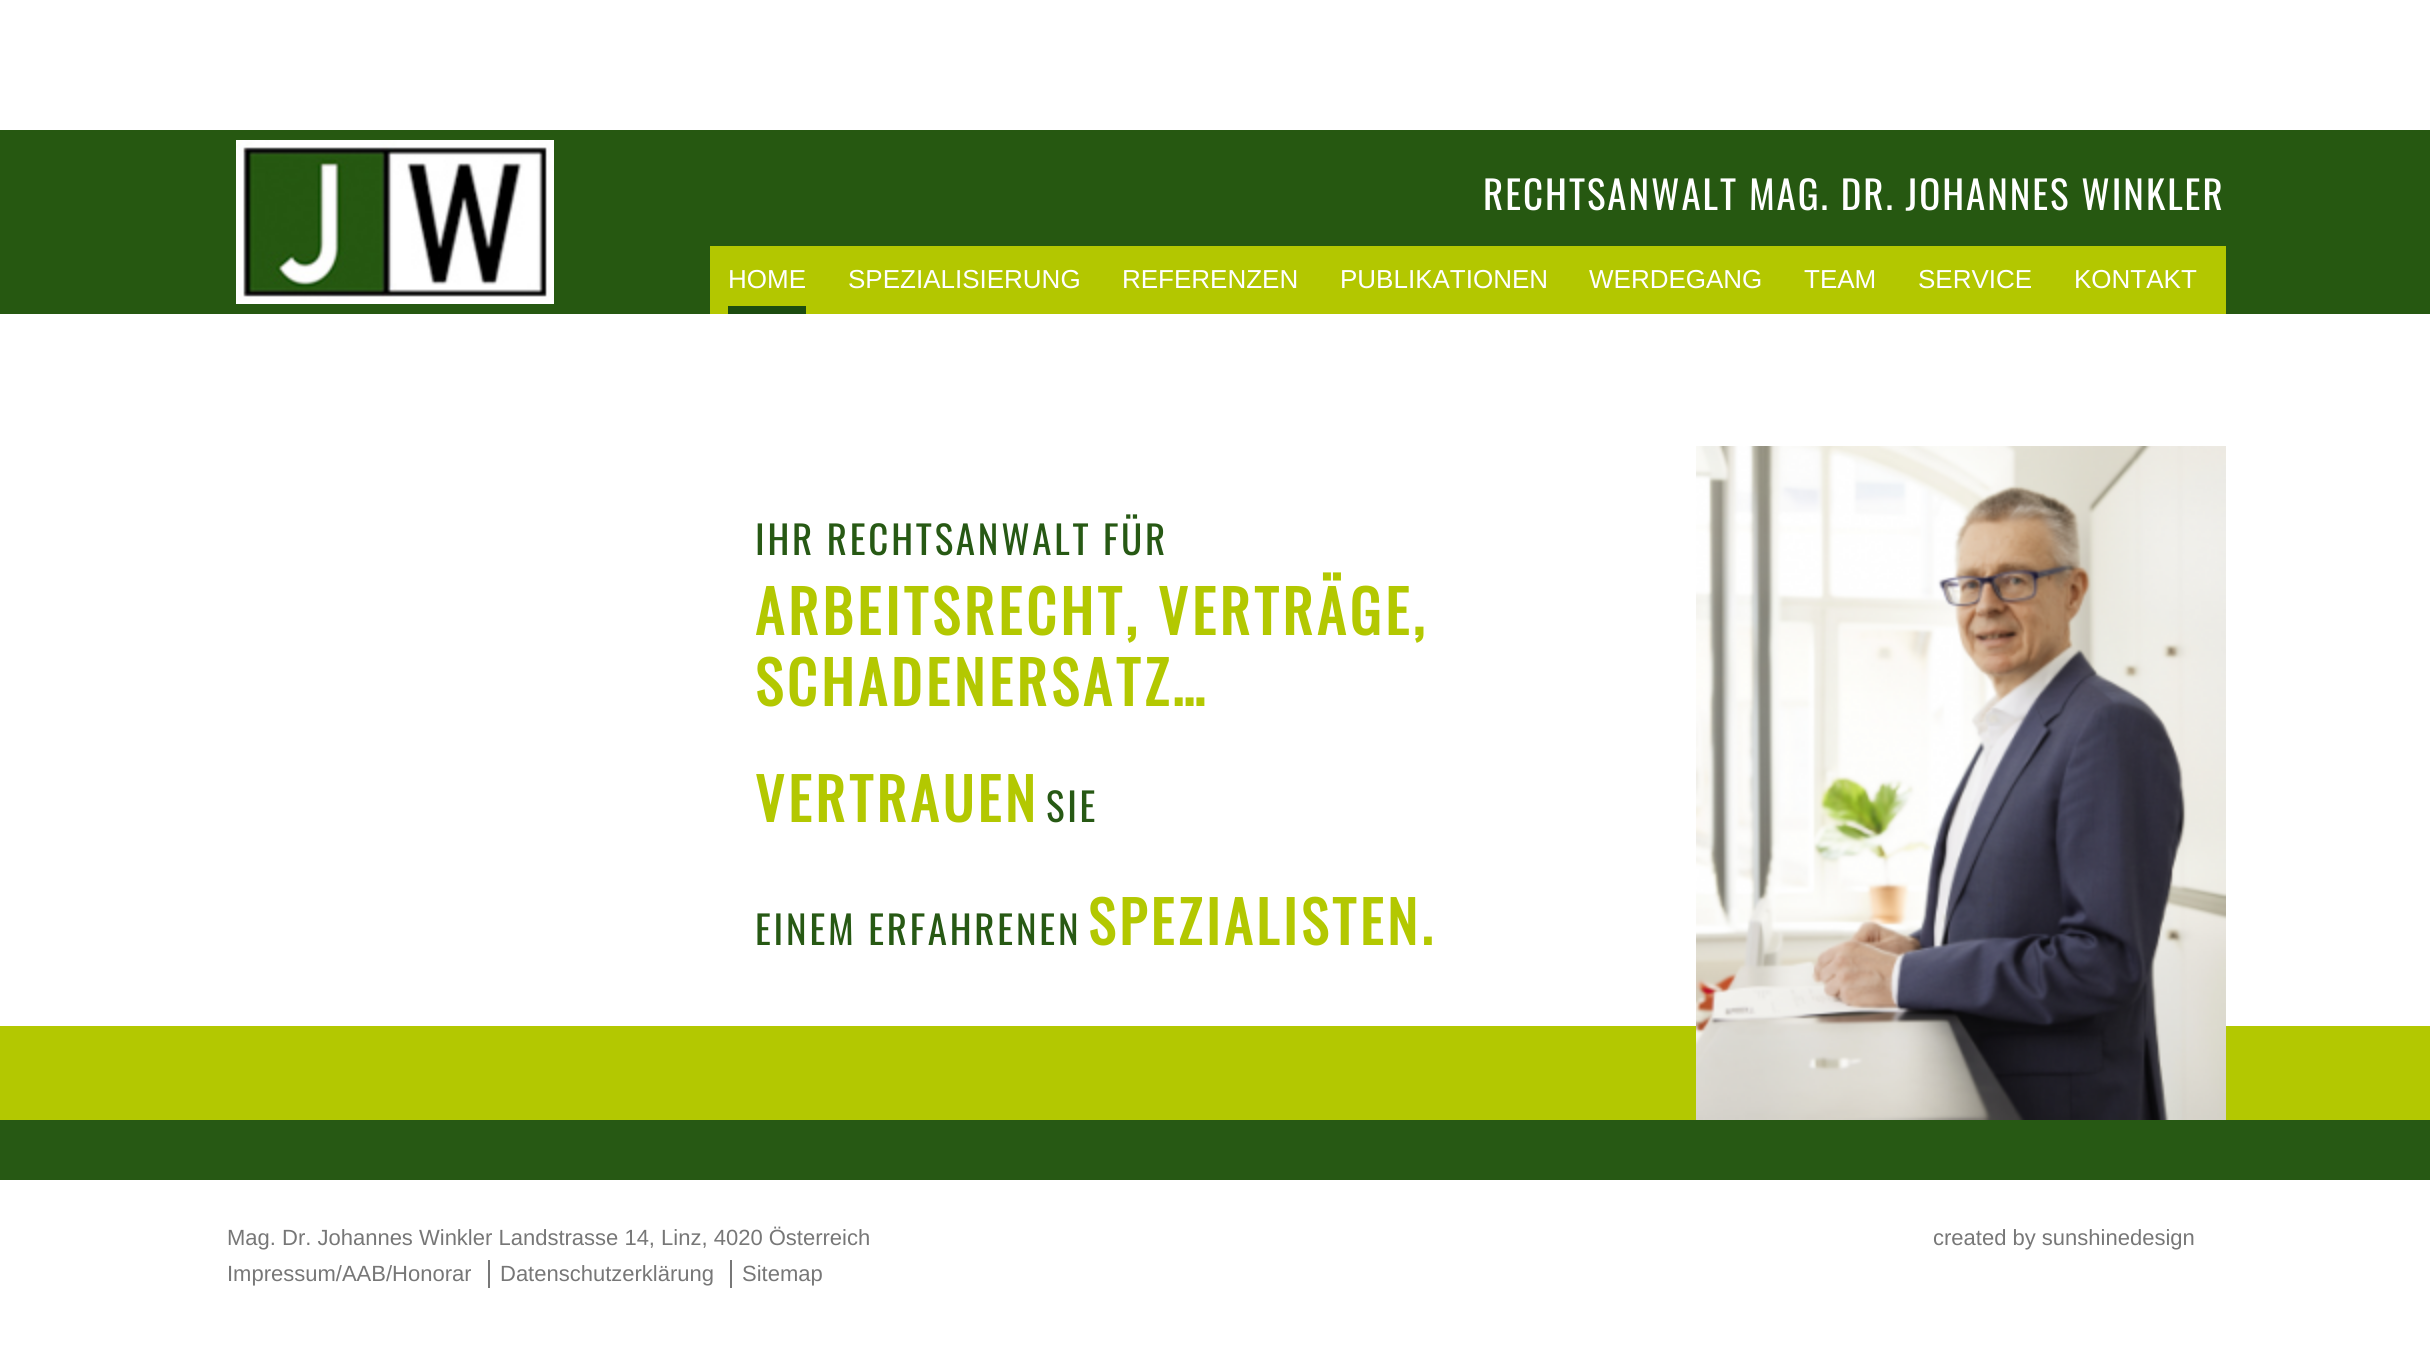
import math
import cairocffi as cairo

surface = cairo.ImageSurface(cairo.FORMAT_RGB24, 2430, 1346)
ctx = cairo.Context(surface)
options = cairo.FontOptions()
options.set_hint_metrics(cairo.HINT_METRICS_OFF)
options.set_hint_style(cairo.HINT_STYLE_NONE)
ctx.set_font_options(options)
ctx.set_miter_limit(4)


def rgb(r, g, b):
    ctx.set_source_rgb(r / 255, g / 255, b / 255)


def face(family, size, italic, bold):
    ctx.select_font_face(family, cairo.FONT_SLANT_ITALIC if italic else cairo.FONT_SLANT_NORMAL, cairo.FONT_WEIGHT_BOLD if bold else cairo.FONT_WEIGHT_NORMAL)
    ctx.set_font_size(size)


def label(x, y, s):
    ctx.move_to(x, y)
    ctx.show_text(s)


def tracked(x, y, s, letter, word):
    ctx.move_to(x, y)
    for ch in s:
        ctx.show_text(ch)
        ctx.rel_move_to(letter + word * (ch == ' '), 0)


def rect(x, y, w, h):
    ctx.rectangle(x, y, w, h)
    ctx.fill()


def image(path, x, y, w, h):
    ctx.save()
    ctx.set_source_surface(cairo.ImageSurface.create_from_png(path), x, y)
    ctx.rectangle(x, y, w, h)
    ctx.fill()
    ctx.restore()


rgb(255, 255, 255)
ctx.paint()
rgb(38, 88, 17)
rect(0, 130, 2430, 184)
image('image0.png', 236, 140, 318, 164)
face('Oswald', 39, 0, 0)
rgb(255, 255, 255)
tracked(1483, 210, 'RECHTSANWALT MAG. DR. JOHANNES WINKLER', 1.95, 0)
rgb(179, 199, 0)
rect(710, 246, 1516, 68)
rgb(28, 76, 16)
rect(728, 306, 78, 8)
face('Liberation Sans', 26, 0, 0)
rgb(255, 255, 255)
label(728, 288, 'HOME')
label(848, 288, 'SPEZIALISIERUNG')
label(1122, 288, 'REFERENZEN')
label(1340, 288, 'PUBLIKATIONEN')
label(1589, 288, 'WERDEGANG')
label(1804, 288, 'TEAM')
label(1918, 288, 'SERVICE')
label(2074, 288, 'KONTAKT')
rgb(39, 89, 20)
rect(0, 1120, 2430, 60)
rgb(179, 200, 1)
rect(0, 1026, 2430, 94)
face('Oswald', 39, 0, 0)
rgb(39, 89, 20)
tracked(755, 555, 'IHR RECHTSANWALT FÜR', 2.75, 0)
face('Oswald', 58.5, 0, 1)
rgb(179, 200, 1)
tracked(755, 635, 'ARBEITSRECHT, VERTRÄGE,', 4.1, 0)
tracked(755, 706, 'SCHADENERSATZ…', 4.1, 0)
face('Oswald', 57.25, 0, 1)
tracked(755, 822, 'VERTRAUEN', 4, 0)
face('Oswald', 39, 0, 0)
rgb(39, 89, 20)
tracked(1046, 822, 'SIE', 2.75, 0)
tracked(755, 945, 'EINEM ERFAHRENEN', 2.75, 0)
face('Oswald', 57.25, 0, 1)
rgb(179, 200, 1)
tracked(1088, 945, 'SPEZIALISTEN.', 4, 0)
image('image1.png', 1696, 446, 530, 674)
face('Liberation Sans', 22, 0, 0)
rgb(119, 119, 119)
label(227, 1245, 'Mag. Dr. Johannes Winkler Landstrasse 14, Linz, 4020 Österreich')
label(227, 1281, 'Impressum/AAB/Honorar')
rect(488, 1260, 2, 28)
label(500, 1281, 'Datenschutzerklärung')
rect(730, 1260, 2, 28)
label(742, 1281, 'Sitemap')
label(1933, 1245, 'created by sunshinedesign')
surface.write_to_png('render.png')
